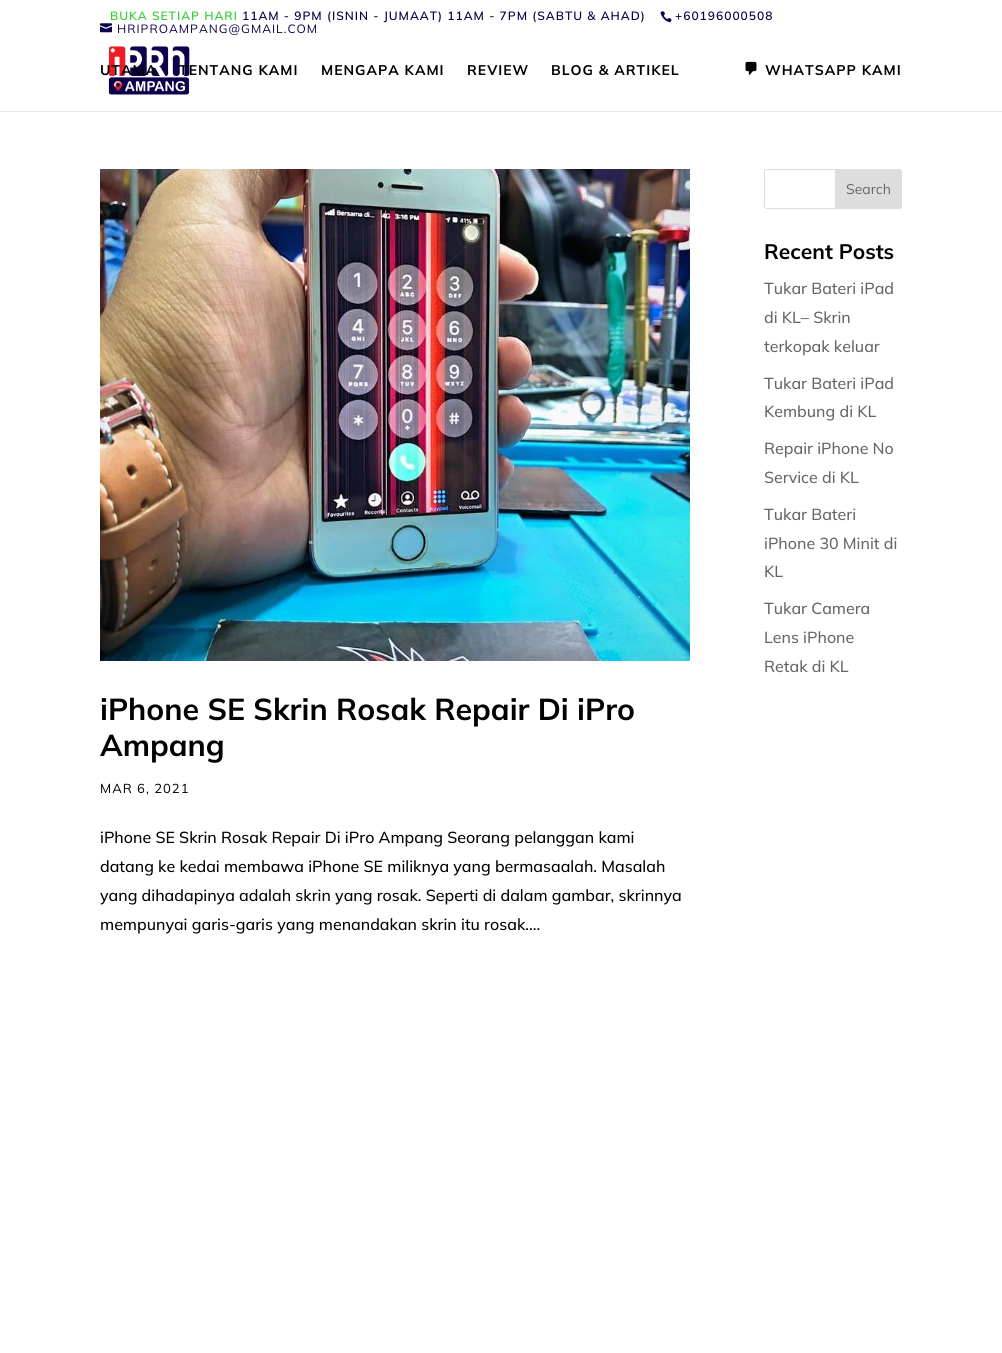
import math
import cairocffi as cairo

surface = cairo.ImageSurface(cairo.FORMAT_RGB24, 1002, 1353)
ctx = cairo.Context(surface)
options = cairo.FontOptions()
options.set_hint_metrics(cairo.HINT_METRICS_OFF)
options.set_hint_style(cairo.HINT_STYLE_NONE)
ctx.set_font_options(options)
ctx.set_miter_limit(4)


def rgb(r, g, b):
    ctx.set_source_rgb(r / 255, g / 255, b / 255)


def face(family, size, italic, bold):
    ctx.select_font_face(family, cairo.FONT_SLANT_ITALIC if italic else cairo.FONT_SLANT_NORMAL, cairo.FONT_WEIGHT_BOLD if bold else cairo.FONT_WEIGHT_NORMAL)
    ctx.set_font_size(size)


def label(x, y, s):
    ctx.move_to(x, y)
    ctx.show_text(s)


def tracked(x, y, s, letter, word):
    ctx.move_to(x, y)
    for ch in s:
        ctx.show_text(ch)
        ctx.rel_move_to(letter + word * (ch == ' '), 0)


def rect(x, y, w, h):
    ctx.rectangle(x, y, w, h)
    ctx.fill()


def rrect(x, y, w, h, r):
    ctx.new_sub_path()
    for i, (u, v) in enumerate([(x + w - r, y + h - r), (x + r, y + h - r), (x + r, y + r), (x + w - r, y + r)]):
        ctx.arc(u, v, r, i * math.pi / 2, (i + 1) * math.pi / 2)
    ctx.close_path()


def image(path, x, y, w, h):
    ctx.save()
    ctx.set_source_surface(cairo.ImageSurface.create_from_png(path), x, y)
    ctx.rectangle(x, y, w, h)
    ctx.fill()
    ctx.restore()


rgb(255, 255, 255)
ctx.paint()
face('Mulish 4 ExtraLight', 12, 0, 0)
rgb(50, 205, 50)
tracked(110, 20, 'BUKA SETIAP HARI', 1, 0)
rgb(14, 1, 76)
tracked(242, 20, '11AM - 9PM (ISNIN - JUMAAT) 11AM - 7PM (SABTU & AHAD)', 1, 0)
image('image0.png', 660, 11, 12, 12)
tracked(675, 20, '+60196000508', 1, 0)
image('image1.png', 100, 23, 12, 10)
face('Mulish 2 ExtraLight', 12, 0, 0)
tracked(117, 33, 'HRIPROAMPANG@GMAIL.COM', 1, 0)
rgb(230, 230, 230)
rect(0, 111, 1002, 1)
image('image2.png', 108, 46, 82, 49)
face('Mulish ExtraLight', 14, 0, 0)
rgb(0, 0, 0)
tracked(100, 75, 'UTAMA', 1, 0)
tracked(179, 75, 'TENTANG KAMI', 1, 0)
tracked(321, 75, 'MENGAPA KAMI', 1, 0)
tracked(467, 75, 'REVIEW', 1, 0)
tracked(551, 75, 'BLOG & ARTIKEL', 1, 0)
image('image3.png', 745, 61, 12, 15)
tracked(765, 75, 'WHATSAPP KAMI', 1, 0)
rrect(764.5, 169.5, 137, 39, 2.5)
rgb(221, 221, 221)
ctx.set_line_width(1)
ctx.stroke()
ctx.new_path()
ctx.move_to(835.5, 169.5)
ctx.line_to(899, 169.5)
ctx.curve_to(900.5, 169.5, 901.5, 170.5, 901.5, 172)
ctx.line_to(901.5, 206)
ctx.curve_to(901.5, 207.5, 900.5, 208.5, 899, 208.5)
ctx.line_to(835.5, 208.5)
ctx.close_path()
ctx.fill_preserve()
ctx.stroke()
face('Mulish 2 ExtraLight', 14, 0, 0)
rgb(102, 102, 102)
label(846, 194, 'Search')
face('Mulish ExtraLight', 21, 0, 0)
rgb(0, 0, 0)
label(764, 259, 'Recent Posts')
face('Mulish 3 ExtraLight', 16, 0, 0)
rgb(102, 102, 102)
label(764, 294, 'Tukar Bateri iPad')
label(764, 323, 'di KL– Skrin')
label(764, 352, 'terkopak keluar')
label(764, 389, 'Tukar Bateri iPad')
label(764, 417, 'Kembung di KL')
label(764, 454, 'Repair iPhone No')
label(764, 483, 'Service di KL')
label(764, 520, 'Tukar Bateri')
label(764, 549, 'iPhone 30 Minit di')
label(764, 577, 'KL')
label(764, 614, 'Tukar Camera')
label(764, 643, 'Lens iPhone')
label(764, 672, 'Retak di KL')
image('image4.png', 100, 169, 590, 492)
face('Mulish ExtraLight', 30.3, 0, 0)
rgb(0, 0, 0)
label(100, 720, 'iPhone SE Skrin Rosak Repair Di iPro')
label(100, 756, 'Ampang')
face('Mulish 2 ExtraLight', 13, 0, 0)
tracked(100, 793, 'MAR 6, 2021', 1, 0)
face('Mulish 3 ExtraLight', 16, 0, 0)
label(100, 843, 'iPhone SE Skrin Rosak Repair Di iPro Ampang Seorang pelanggan kami')
label(100, 872, 'datang ke kedai membawa iPhone SE miliknya yang bermasaalah. Masalah')
label(100, 901, 'yang dihadapinya adalah skrin yang rosak. Seperti di dalam gambar, skrinnya')
label(100, 930, 'mempunyai garis-garis yang menandakan skrin itu rosak....')
surface.write_to_png('render.png')
